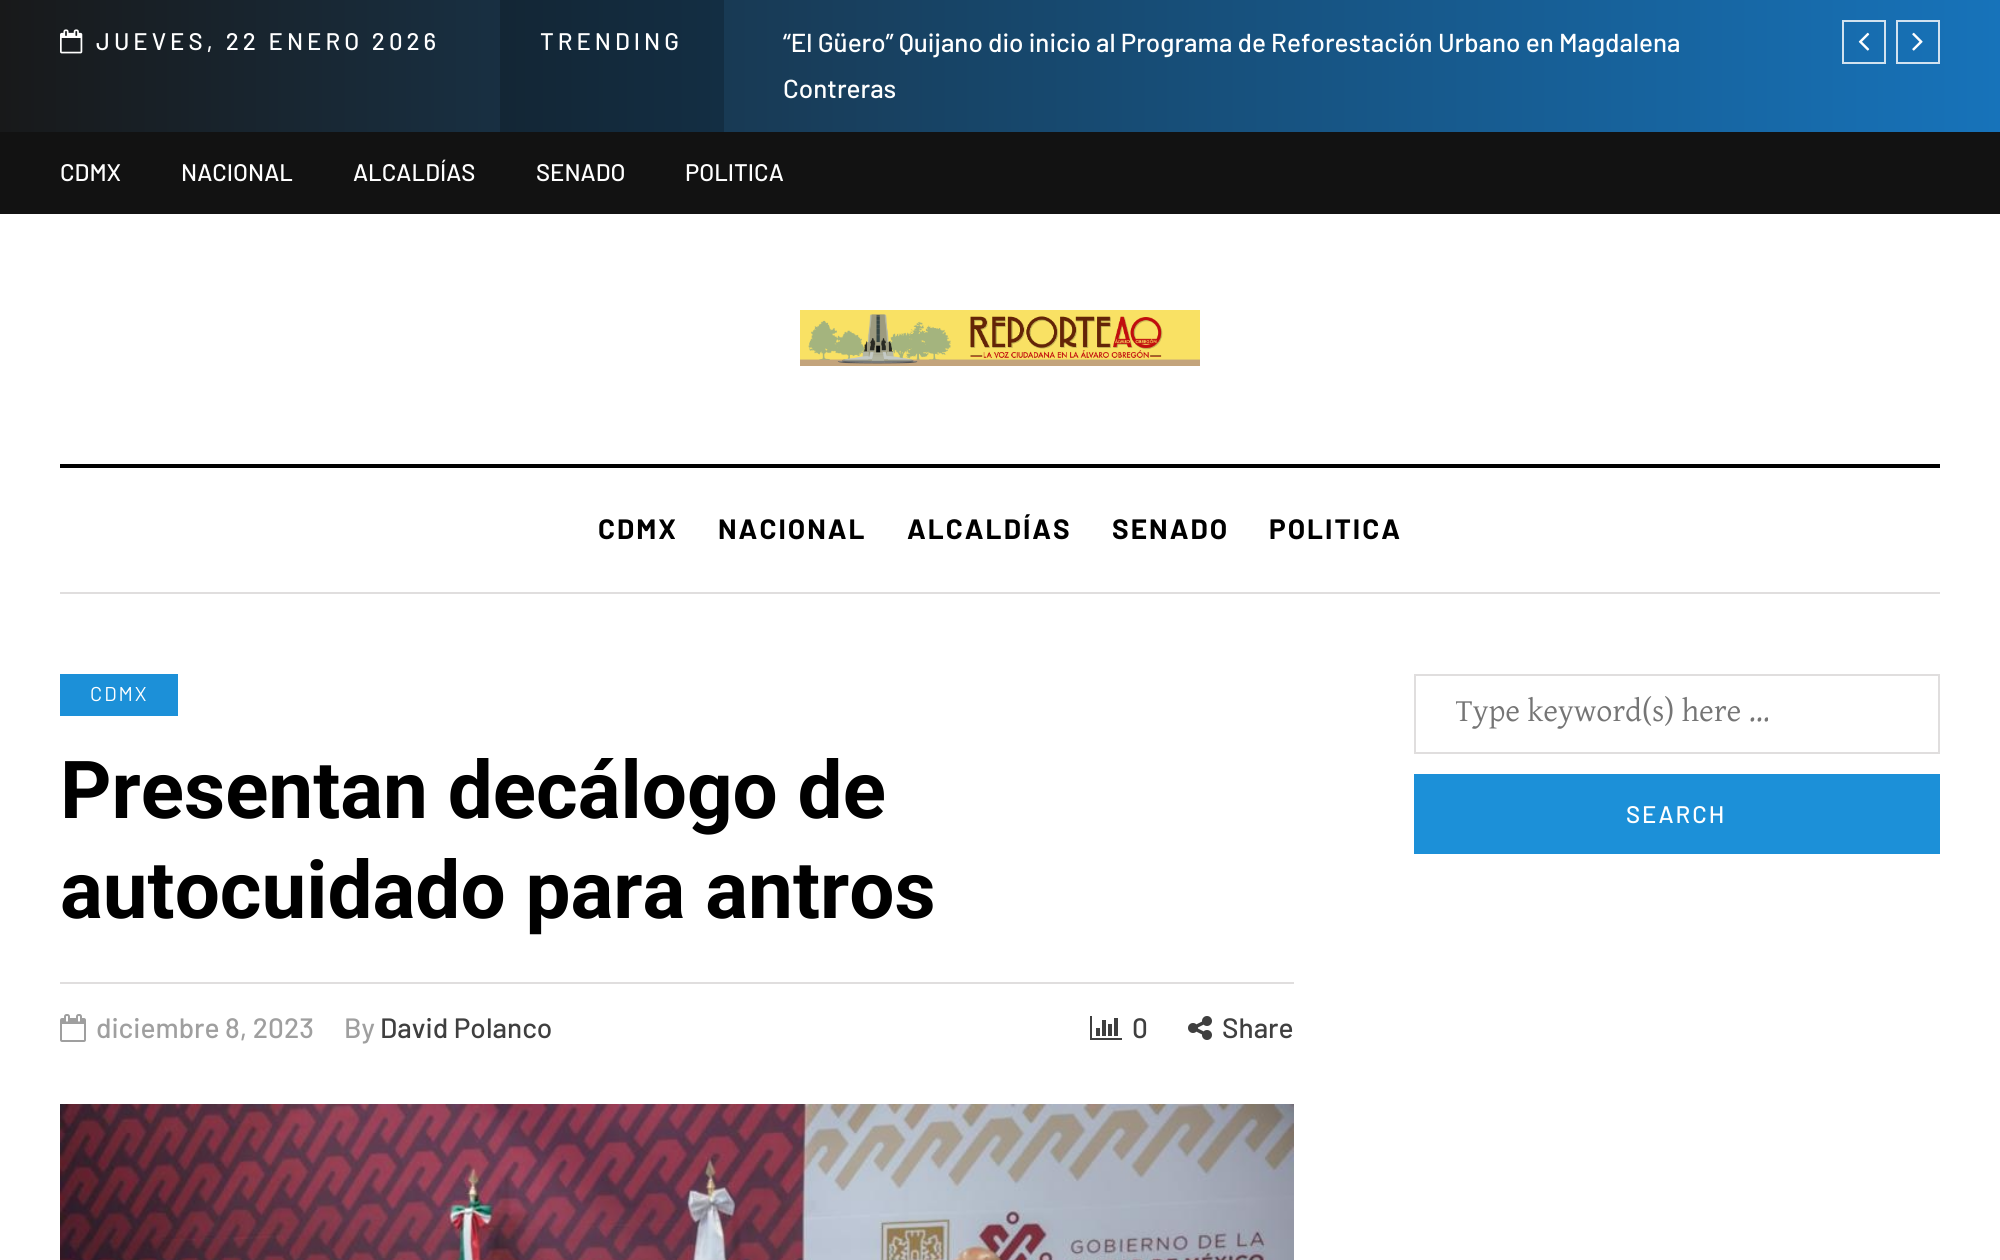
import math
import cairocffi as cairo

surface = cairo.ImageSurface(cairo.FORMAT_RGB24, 2000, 1260)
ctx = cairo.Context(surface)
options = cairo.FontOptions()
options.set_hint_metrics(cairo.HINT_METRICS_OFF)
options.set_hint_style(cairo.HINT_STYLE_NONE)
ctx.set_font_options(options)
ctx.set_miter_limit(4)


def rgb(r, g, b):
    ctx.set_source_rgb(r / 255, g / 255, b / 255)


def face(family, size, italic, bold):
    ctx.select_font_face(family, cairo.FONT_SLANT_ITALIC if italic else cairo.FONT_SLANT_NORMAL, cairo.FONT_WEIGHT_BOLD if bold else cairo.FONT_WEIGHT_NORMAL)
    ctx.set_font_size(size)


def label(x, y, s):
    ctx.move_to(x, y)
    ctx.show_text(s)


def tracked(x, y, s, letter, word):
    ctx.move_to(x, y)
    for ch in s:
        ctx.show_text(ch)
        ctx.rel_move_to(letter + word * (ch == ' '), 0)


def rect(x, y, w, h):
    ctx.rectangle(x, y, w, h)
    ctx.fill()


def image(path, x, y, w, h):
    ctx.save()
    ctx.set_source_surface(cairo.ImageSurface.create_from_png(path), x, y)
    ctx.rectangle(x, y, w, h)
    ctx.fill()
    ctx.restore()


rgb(255, 255, 255)
ctx.paint()
gradient = cairo.LinearGradient(0, 66, 2000, 66)
gradient.add_color_stop_rgba(0, 0.094, 0.098, 0.102, 1)
gradient.add_color_stop_rgba(1, 0.09, 0.451, 0.729, 1)
ctx.set_source(gradient)
rect(0, 0, 2000, 132)
gradient = cairo.LinearGradient(0, 66, 2000, 66)
gradient.add_color_stop_rgba(0, 0.075, 0.078, 0.082, 1)
gradient.add_color_stop_rgba(1, 0.071, 0.361, 0.584, 1)
ctx.set_source(gradient)
rect(500, 0, 224, 132)
image('image0.png', 60, 29, 23, 25)
face('Barlow Medium', 24, 0, 0)
rgb(255, 255, 255)
tracked(96, 50, 'JUEVES, 22 ENERO 2026', 4, 0)
tracked(540, 50, 'TRENDING', 4, 0)
face('Barlow Medium', 26, 0, 0)
label(783, 52, '“El Güero” Quijano dio inicio al Programa de Reforestación Urbano en Magdalena')
label(783, 98, 'Contreras')
ctx.rectangle(1843, 21, 42, 42)
ctx.set_source_rgba(1, 1, 1, 0.8)
ctx.stroke()
image('image1.png', 1858, 32, 12, 19)
ctx.rectangle(1897, 21, 42, 42)
ctx.stroke()
image('image2.png', 1912, 32, 11, 19)
rgb(18, 18, 18)
rect(0, 132, 2000, 82)
face('Barlow Medium', 24, 0, 0)
rgb(255, 255, 255)
label(60, 181, 'CDMX')
label(181, 181, 'NACIONAL')
label(353, 181, 'ALCALDÍAS')
label(536, 181, 'SENADO')
label(685, 181, 'POLITICA')
image('image3.png', 800, 310, 400, 56)
rgb(0, 0, 0)
rect(60, 464, 1880, 4)
rgb(224, 222, 222)
rect(60, 592, 1880, 2)
face('Barlow', 28, 0, 1)
rgb(0, 0, 0)
tracked(598, 539, 'CDMX', 2, 0)
tracked(718, 539, 'NACIONAL', 2, 0)
tracked(907, 539, 'ALCALDÍAS', 2, 0)
tracked(1112, 539, 'SENADO', 2, 0)
tracked(1269, 539, 'POLITICA', 2, 0)
rgb(28, 144, 216)
rect(60, 674, 118, 42)
face('Barlow', 20, 0, 0)
rgb(255, 255, 255)
tracked(90, 701, 'CDMX', 2, 0)
face('Roboto', 80, 0, 1)
rgb(0, 0, 0)
label(60, 818, 'Presentan decálogo de')
label(60, 918, 'autocuidado para antros')
rgb(224, 222, 222)
rect(60, 982, 1234, 2)
image('image4.png', 60, 1014, 26, 28)
face('Barlow Medium', 28, 0, 0)
rgb(159, 159, 159)
label(96, 1038, 'diciembre 8, 2023')
label(344, 1038, 'By')
rgb(63, 63, 63)
label(380, 1038, 'David Polanco')
image('image5.png', 1090, 1016, 32, 24)
label(1132, 1038, '0')
image('image6.png', 1188, 1016, 24, 24)
label(1222, 1038, 'Share')
image('image7.png', 60, 1104, 1234, 156)
ctx.rectangle(1415, 675, 524, 78)
rgb(224, 222, 222)
ctx.stroke()
ctx.save()
ctx.rectangle(1456, 694, 434, 38)
ctx.clip()
face('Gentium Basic', 32, 0, 0)
rgb(117, 117, 117)
label(1455, 721, 'Type keyword(s) here …')
ctx.restore()
rgb(28, 144, 216)
rect(1414, 774, 526, 80)
face('Barlow Medium', 24, 0, 0)
rgb(255, 255, 255)
tracked(1626, 823, 'SEARCH', 2, 0)
surface.write_to_png('render.png')
